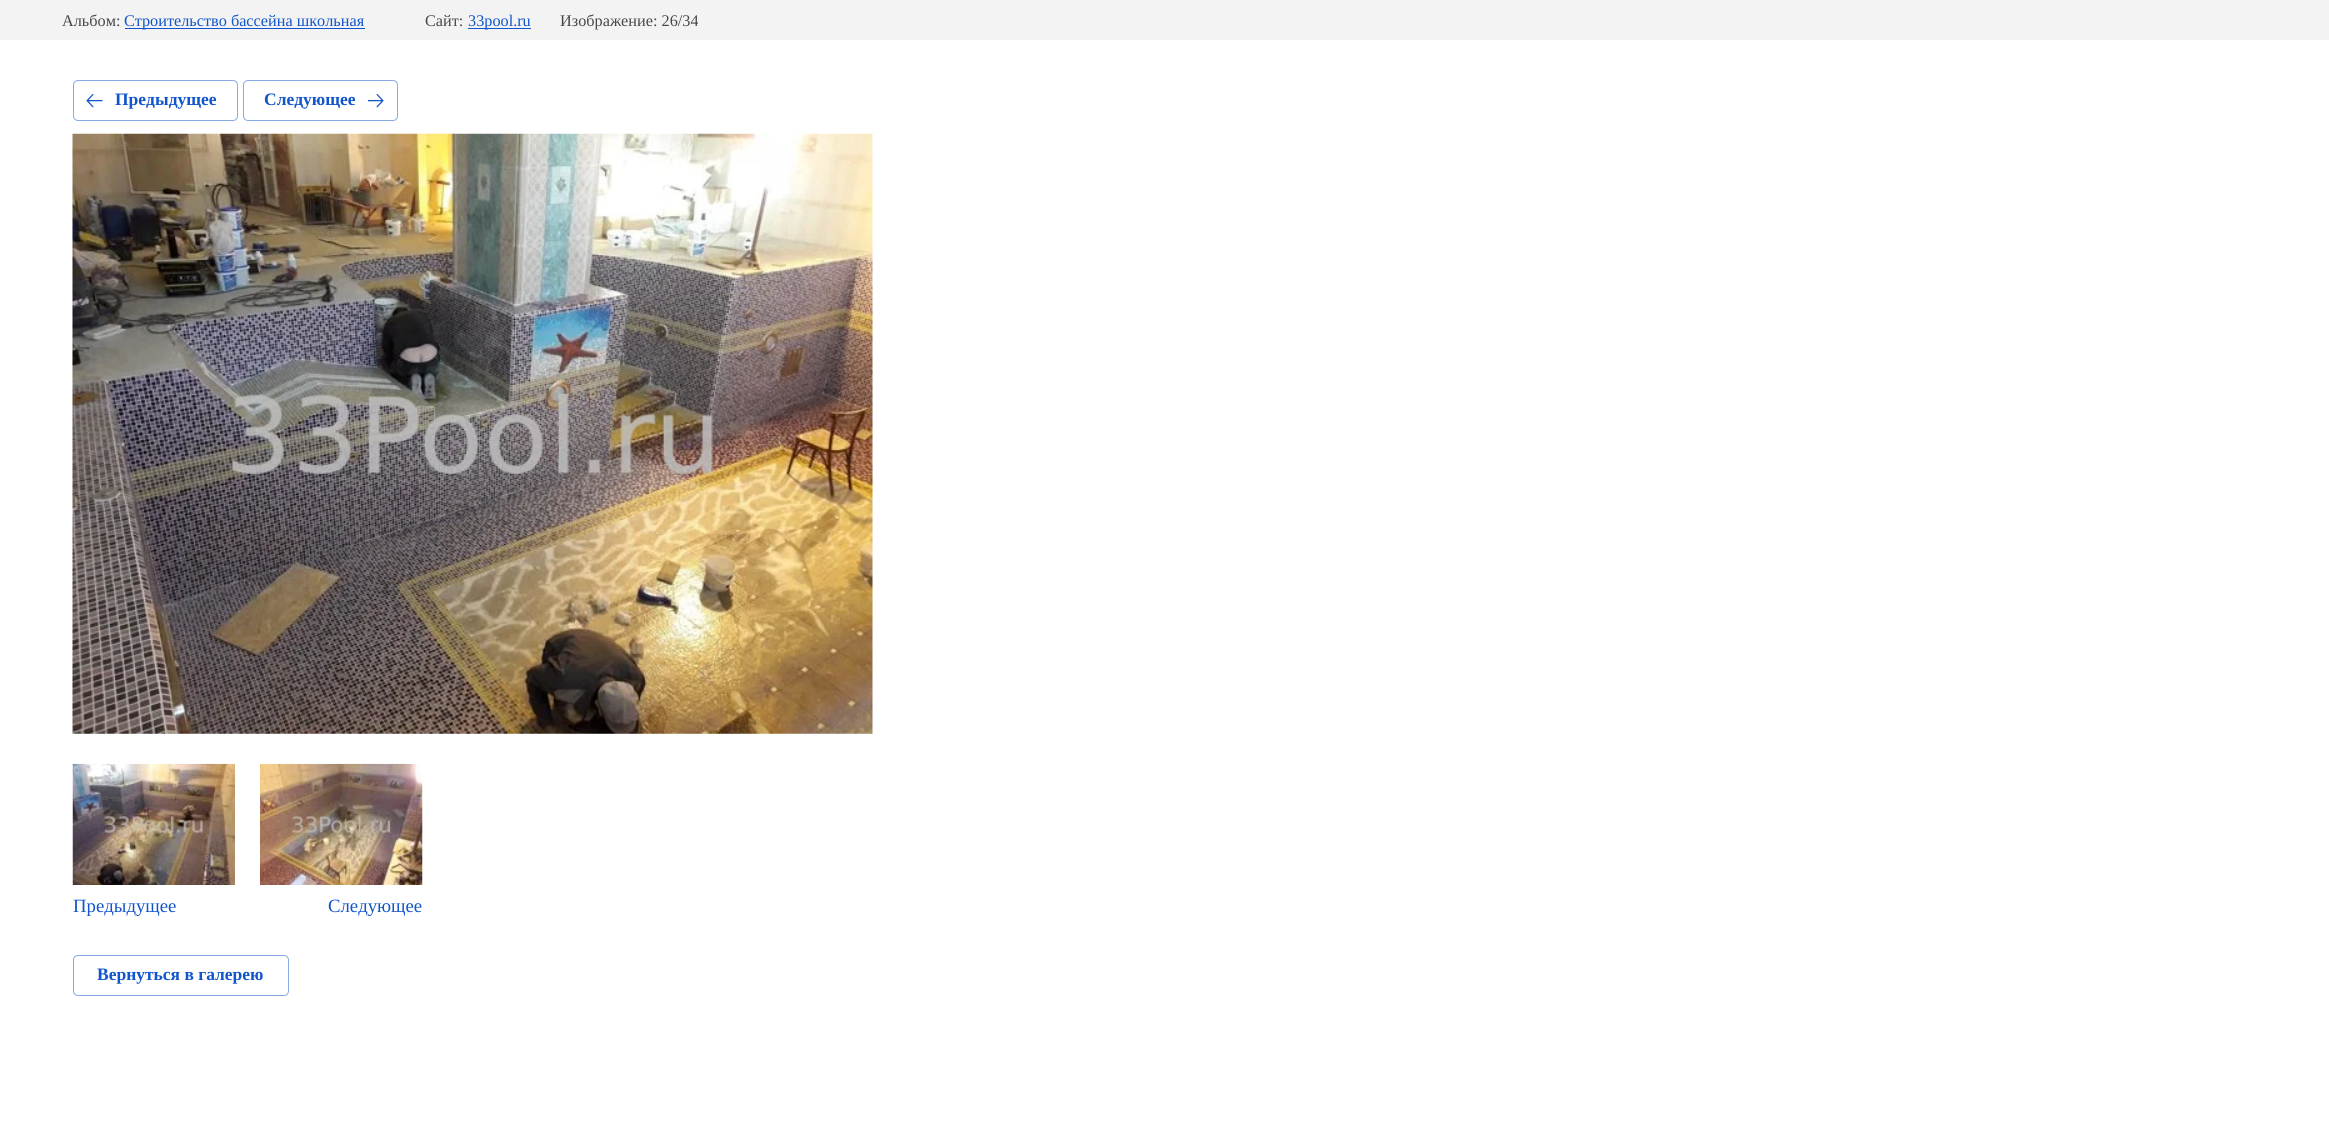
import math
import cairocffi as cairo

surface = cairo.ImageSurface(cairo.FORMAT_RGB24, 2329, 1122)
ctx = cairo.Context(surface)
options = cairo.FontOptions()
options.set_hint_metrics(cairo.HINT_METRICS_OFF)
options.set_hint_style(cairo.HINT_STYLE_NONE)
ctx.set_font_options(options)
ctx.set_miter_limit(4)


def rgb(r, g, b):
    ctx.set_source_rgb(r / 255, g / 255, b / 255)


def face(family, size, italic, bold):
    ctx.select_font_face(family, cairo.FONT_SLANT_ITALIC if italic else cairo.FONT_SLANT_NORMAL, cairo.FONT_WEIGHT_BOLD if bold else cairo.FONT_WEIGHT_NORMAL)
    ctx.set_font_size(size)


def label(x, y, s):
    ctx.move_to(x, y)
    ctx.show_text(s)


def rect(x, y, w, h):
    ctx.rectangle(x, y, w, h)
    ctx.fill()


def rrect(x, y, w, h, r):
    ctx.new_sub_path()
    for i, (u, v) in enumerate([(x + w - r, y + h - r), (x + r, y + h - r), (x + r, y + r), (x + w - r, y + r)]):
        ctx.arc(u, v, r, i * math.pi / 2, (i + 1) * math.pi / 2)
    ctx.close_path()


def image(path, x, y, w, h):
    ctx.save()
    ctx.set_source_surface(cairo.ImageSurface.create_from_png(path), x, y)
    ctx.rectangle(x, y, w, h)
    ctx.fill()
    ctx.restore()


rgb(255, 255, 255)
ctx.paint()
rgb(243, 243, 243)
rect(0, 0, 2329, 40)
face('Liberation Serif', 16.25, 0, 0)
rgb(72, 72, 72)
label(62, 26, 'Альбом:')
rgb(17, 85, 204)
rect(125, 28, 240, 1)
label(124, 26, 'Строительство бассейна школьная')
rgb(72, 72, 72)
label(425, 26, 'Сайт:')
rgb(17, 85, 204)
rect(468, 28, 63, 1)
label(468, 26, '33pool.ru')
rgb(72, 72, 72)
label(560, 26, 'Изображение: 26/34')
rrect(73.5, 80.5, 164, 40, 4.5)
rgb(136, 170, 230)
ctx.set_line_width(1)
ctx.stroke()
image('image0.png', 86, 94, 17, 14)
face('Liberation Serif', 17.5, 0, 1)
rgb(17, 85, 204)
label(115, 105, 'Предыдущее')
rrect(243.5, 80.5, 154, 40, 4.5)
rgb(136, 170, 230)
ctx.stroke()
rgb(17, 85, 204)
label(264, 105, 'Следующее')
image('image1.png', 368, 94, 16, 14)
image('image2.png', 72, 133, 801, 601)
image('image3.png', 72, 763, 163, 122)
face('Liberation Serif', 18.75, 0, 0)
label(73, 912, 'Предыдущее')
image('image4.png', 260, 763, 163, 122)
label(328, 912, 'Следующее')
rrect(73.5, 955.5, 215, 40, 4.5)
rgb(136, 170, 230)
ctx.stroke()
face('Liberation Serif', 17.5, 0, 1)
rgb(17, 85, 204)
label(97, 980, 'Вернуться в галерею')
surface.write_to_png('render.png')
